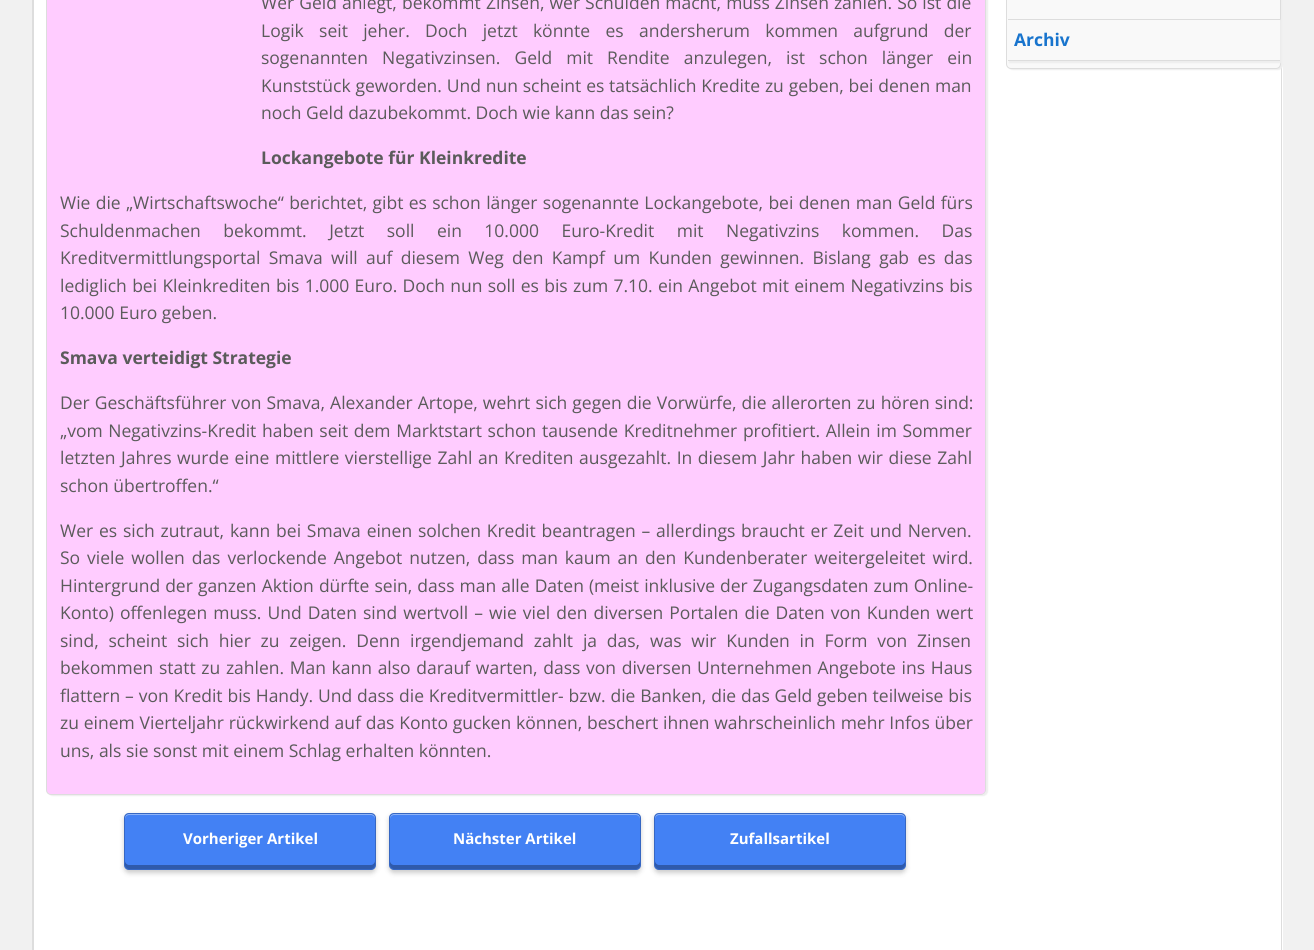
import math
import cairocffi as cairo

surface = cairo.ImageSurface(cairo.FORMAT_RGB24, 1314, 950)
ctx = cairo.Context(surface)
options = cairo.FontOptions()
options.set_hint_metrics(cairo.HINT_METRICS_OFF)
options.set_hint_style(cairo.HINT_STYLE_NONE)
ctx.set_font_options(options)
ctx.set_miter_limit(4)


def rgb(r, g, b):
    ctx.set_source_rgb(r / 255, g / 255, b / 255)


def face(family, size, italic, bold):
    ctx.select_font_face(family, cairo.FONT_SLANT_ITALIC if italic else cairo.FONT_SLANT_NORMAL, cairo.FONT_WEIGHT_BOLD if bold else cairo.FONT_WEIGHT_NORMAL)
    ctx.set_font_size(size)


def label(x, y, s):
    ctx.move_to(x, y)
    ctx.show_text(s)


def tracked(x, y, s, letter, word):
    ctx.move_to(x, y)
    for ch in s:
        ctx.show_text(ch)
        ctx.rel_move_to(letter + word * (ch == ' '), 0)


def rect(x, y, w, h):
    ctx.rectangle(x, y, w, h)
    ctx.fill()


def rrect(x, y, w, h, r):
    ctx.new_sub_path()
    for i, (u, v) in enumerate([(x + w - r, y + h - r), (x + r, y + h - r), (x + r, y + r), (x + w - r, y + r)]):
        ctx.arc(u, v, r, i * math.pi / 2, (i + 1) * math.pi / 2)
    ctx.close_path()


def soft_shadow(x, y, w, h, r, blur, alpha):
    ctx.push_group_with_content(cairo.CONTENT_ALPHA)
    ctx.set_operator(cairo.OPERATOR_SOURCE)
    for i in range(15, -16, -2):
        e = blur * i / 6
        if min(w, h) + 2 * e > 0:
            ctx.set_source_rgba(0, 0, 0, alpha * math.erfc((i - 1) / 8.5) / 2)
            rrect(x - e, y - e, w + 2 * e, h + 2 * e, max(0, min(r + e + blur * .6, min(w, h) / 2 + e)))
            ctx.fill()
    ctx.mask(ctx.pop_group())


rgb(241, 241, 241)
ctx.paint()
rgb(255, 255, 255)
rect(34, 0, 1249, 950)
rgb(221, 221, 221)
ctx.set_fill_rule(cairo.FILL_RULE_EVEN_ODD)
ctx.new_path()
ctx.move_to(32, -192)
ctx.line_to(1282, -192)
ctx.line_to(1282, 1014)
ctx.curve_to(1282, 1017, 1280, 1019, 1278, 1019)
ctx.line_to(38, 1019)
ctx.curve_to(35, 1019, 32, 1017, 32, 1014)
ctx.close_path()
ctx.move_to(34, -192)
ctx.line_to(1281, -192)
ctx.line_to(1281, 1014)
ctx.curve_to(1281, 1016, 1280, 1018, 1278, 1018)
ctx.line_to(38, 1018)
ctx.curve_to(35, 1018, 34, 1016, 34, 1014)
ctx.close_path()
ctx.fill()
ctx.save()
ctx.new_path()
ctx.move_to(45, 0)
ctx.line_to(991, 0)
ctx.line_to(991, 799)
ctx.line_to(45, 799)
ctx.close_path()
ctx.move_to(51, -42)
ctx.line_to(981, -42)
ctx.curve_to(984, -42, 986, -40, 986, -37)
ctx.line_to(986, 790)
ctx.curve_to(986, 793, 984, 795, 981, 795)
ctx.line_to(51, 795)
ctx.curve_to(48, 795, 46, 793, 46, 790)
ctx.line_to(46, -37)
ctx.curve_to(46, -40, 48, -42, 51, -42)
ctx.close_path()
ctx.clip()
rgb(238, 238, 238)
soft_shadow(48, -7, 940, 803, 5, 0.5, 1)
ctx.restore()
ctx.set_source_rgba(1, 0.267, 1, 0.27)
rrect(46.5, -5.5, 939, 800, 4.5)
ctx.fill_preserve()
rgb(221, 221, 221)
ctx.set_line_width(1)
ctx.stroke()
face('Open Sans', 17.5, 0, 0)
rgb(91, 91, 91)
tracked(261, 9, 'Wer Geld anlegt, bekommt Zinsen, wer Schulden macht, muss Zinsen zahlen. So ist die', 0, 0.5)
tracked(261, 37, 'Logik seit jeher. Doch jetzt könnte es andersherum kommen aufgrund der', 0, 10.75)
tracked(261, 64, 'sogenannten Negativzinsen. Geld mit Rendite anzulegen, ist schon länger ein', 0, 9.5)
tracked(261, 92, 'Kunststück geworden. Und nun scheint es tatsächlich Kredite zu geben, bei denen man', 0, 0.25)
label(261, 119, 'noch Geld dazubekommt. Doch wie kann das sein?')
face('Open Sans', 17.5, 0, 1)
label(261, 164, 'Lockangebote für Kleinkredite')
face('Open Sans', 17.5, 0, 0)
tracked(60, 209, 'Wie die „Wirtschaftswoche“ berichtet, gibt es schon länger sogenannte Lockangebote, bei denen man Geld fürs', 0, 0.75)
tracked(60, 237, 'Schuldenmachen bekommt. Jetzt soll ein 10.000 Euro-Kredit mit Negativzins kommen. Das', 0, 17.9)
tracked(60, 264, 'Kreditvermittlungsportal Smava will auf diesem Weg den Kampf um Kunden gewinnen. Bislang gab es das', 0, 3.75)
tracked(60, 292, 'lediglich bei Kleinkrediten bis 1.000 Euro. Doch nun soll es bis zum 7.10. ein Angebot mit einem Negativzins bis', 0, 0.75)
label(60, 319, '10.000 Euro geben.')
face('Open Sans', 17.5, 0, 1)
label(60, 364, 'Smava verteidigt Strategie')
face('Open Sans', 17.5, 0, 0)
tracked(60, 409, 'Der Geschäftsführer von Smava, Alexander Artope, wehrt sich gegen die Vorwürfe, die allerorten zu hören sind:', 0, 0.5)
tracked(60, 437, '„vom Negativzins-Kredit haben seit dem Marktstart schon tausende Kreditnehmer profitiert. Allein im Sommer', 0, 1.1)
tracked(60, 464, 'letzten Jahres wurde eine mittlere vierstellige Zahl an Krediten ausgezahlt. In diesem Jahr haben wir diese Zahl', 0, 1)
label(60, 492, 'schon übertroffen.“')
tracked(60, 537, 'Wer es sich zutraut, kann bei Smava einen solchen Kredit beantragen – allerdings braucht er Zeit und Nerven.', 0, 1.25)
tracked(60, 564, 'So viele wollen das verlockende Angebot nutzen, dass man kaum an den Kundenberater weitergeleitet wird.', 0, 2.4)
tracked(60, 592, 'Hintergrund der ganzen Aktion dürfte sein, dass man alle Daten (meist inklusive der Zugangsdaten zum Online-', 0, 0.5)
tracked(60, 619, 'Konto) offenlegen muss. Und Daten sind wertvoll – wie viel den diversen Portalen die Daten von Kunden wert', 0, 1.5)
tracked(60, 647, 'sind, scheint sich hier zu zeigen. Denn irgendjemand zahlt ja das, was wir Kunden in Form von Zinsen', 0, 5.25)
tracked(60, 674, 'bekommen statt zu zahlen. Man kann also darauf warten, dass von diversen Unternehmen Angebote ins Haus', 0, 1.1)
tracked(60, 702, 'flattern – von Kredit bis Handy. Und dass die Kreditvermittler- bzw. die Banken, die das Geld geben teilweise bis', 0, 0.3)
tracked(60, 729, 'zu einem Vierteljahr rückwirkend auf das Konto gucken können, beschert ihnen wahrscheinlich mehr Infos über', 0, 0.25)
label(60, 757, 'uns, als sie sonst mit einem Schlag erhalten könnten.')
rgb(0, 0, 0)
soft_shadow(124, 815, 252, 58, 5, 2.5, 0.2)
rgb(67, 129, 244)
rrect(124, 813, 252, 57, 5)
ctx.fill()
rgb(47, 90, 171)
ctx.set_fill_rule(cairo.FILL_RULE_WINDING)
ctx.new_path()
ctx.move_to(125, 861)
ctx.line_to(125, 865)
ctx.curve_to(125, 867, 127, 869, 129, 869)
ctx.line_to(371, 869)
ctx.curve_to(373, 869, 375, 867, 375, 865)
ctx.line_to(375, 861)
ctx.curve_to(375, 863, 373, 865, 371, 865)
ctx.line_to(129, 865)
ctx.curve_to(127, 865, 125, 863, 125, 861)
ctx.close_path()
ctx.fill()
rgb(142, 179, 248)
ctx.new_path()
ctx.move_to(129, 815)
ctx.line_to(371, 815)
ctx.curve_to(373, 815, 375, 817, 375, 819)
ctx.line_to(375, 818)
ctx.curve_to(375, 816, 373, 814, 371, 814)
ctx.line_to(129, 814)
ctx.curve_to(127, 814, 125, 816, 125, 818)
ctx.line_to(125, 819)
ctx.curve_to(125, 817, 127, 815, 129, 815)
ctx.close_path()
ctx.fill()
rrect(124.5, 813.5, 251, 56, 4.5)
ctx.set_source_rgba(0, 0, 0, 0.2)
ctx.stroke()
face('Open Sans', 15, 0, 1)
rgb(255, 255, 255)
label(183, 844, 'Vorheriger Artikel')
rgb(0, 0, 0)
soft_shadow(389, 815, 252, 58, 5, 2.5, 0.2)
rgb(67, 129, 244)
rrect(389, 813, 252, 57, 5)
ctx.fill()
rgb(47, 90, 171)
ctx.new_path()
ctx.move_to(390, 861)
ctx.line_to(390, 865)
ctx.curve_to(390, 867, 392, 869, 394, 869)
ctx.line_to(636, 869)
ctx.curve_to(638, 869, 640, 867, 640, 865)
ctx.line_to(640, 861)
ctx.curve_to(640, 863, 638, 865, 636, 865)
ctx.line_to(394, 865)
ctx.curve_to(392, 865, 390, 863, 390, 861)
ctx.close_path()
ctx.fill()
rgb(142, 179, 248)
ctx.new_path()
ctx.move_to(394, 815)
ctx.line_to(636, 815)
ctx.curve_to(638, 815, 640, 817, 640, 819)
ctx.line_to(640, 818)
ctx.curve_to(640, 816, 638, 814, 636, 814)
ctx.line_to(394, 814)
ctx.curve_to(392, 814, 390, 816, 390, 818)
ctx.line_to(390, 819)
ctx.curve_to(390, 817, 392, 815, 394, 815)
ctx.close_path()
ctx.fill()
rrect(389.5, 813.5, 251, 56, 4.5)
ctx.set_source_rgba(0, 0, 0, 0.2)
ctx.stroke()
rgb(255, 255, 255)
label(453, 844, 'Nächster Artikel')
rgb(0, 0, 0)
soft_shadow(654, 815, 252, 58, 5, 2.5, 0.2)
rgb(67, 129, 244)
rrect(654, 813, 252, 57, 5)
ctx.fill()
rgb(47, 90, 171)
ctx.new_path()
ctx.move_to(655, 861)
ctx.line_to(655, 865)
ctx.curve_to(655, 867, 657, 869, 659, 869)
ctx.line_to(901, 869)
ctx.curve_to(903, 869, 905, 867, 905, 865)
ctx.line_to(905, 861)
ctx.curve_to(905, 863, 903, 865, 901, 865)
ctx.line_to(659, 865)
ctx.curve_to(657, 865, 655, 863, 655, 861)
ctx.close_path()
ctx.fill()
rgb(142, 179, 248)
ctx.new_path()
ctx.move_to(659, 815)
ctx.line_to(901, 815)
ctx.curve_to(903, 815, 905, 817, 905, 819)
ctx.line_to(905, 818)
ctx.curve_to(905, 816, 903, 814, 901, 814)
ctx.line_to(659, 814)
ctx.curve_to(657, 814, 655, 816, 655, 818)
ctx.line_to(655, 819)
ctx.curve_to(655, 817, 657, 815, 659, 815)
ctx.close_path()
ctx.fill()
rrect(654.5, 813.5, 251, 56, 4.5)
ctx.set_source_rgba(0, 0, 0, 0.2)
ctx.stroke()
rgb(255, 255, 255)
label(730, 844, 'Zufallsartikel')
rgb(238, 238, 238)
soft_shadow(1008, -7, 275, 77, 5, 0.5, 1)
rgb(249, 249, 249)
rrect(1006.5, -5.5, 274, 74, 4.5)
ctx.fill_preserve()
rgb(221, 221, 221)
ctx.stroke()
ctx.save()
ctx.set_fill_rule(cairo.FILL_RULE_EVEN_ODD)
ctx.new_path()
ctx.move_to(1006, 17)
ctx.line_to(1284, 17)
ctx.line_to(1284, 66)
ctx.line_to(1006, 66)
ctx.close_path()
ctx.move_to(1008, 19)
ctx.line_to(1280, 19)
ctx.line_to(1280, 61)
ctx.line_to(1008, 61)
ctx.close_path()
ctx.clip()
rgb(238, 238, 238)
soft_shadow(1009, 20, 272, 43, 0, 0.5, 1)
ctx.restore()
rect(1008, 19, 272, 1)
rect(1008, 60, 272, 1)
face('Open Sans', 17.5, 0, 1)
rgb(24, 116, 205)
label(1014, 46, 'Archiv')
surface.write_to_png('render.png')
